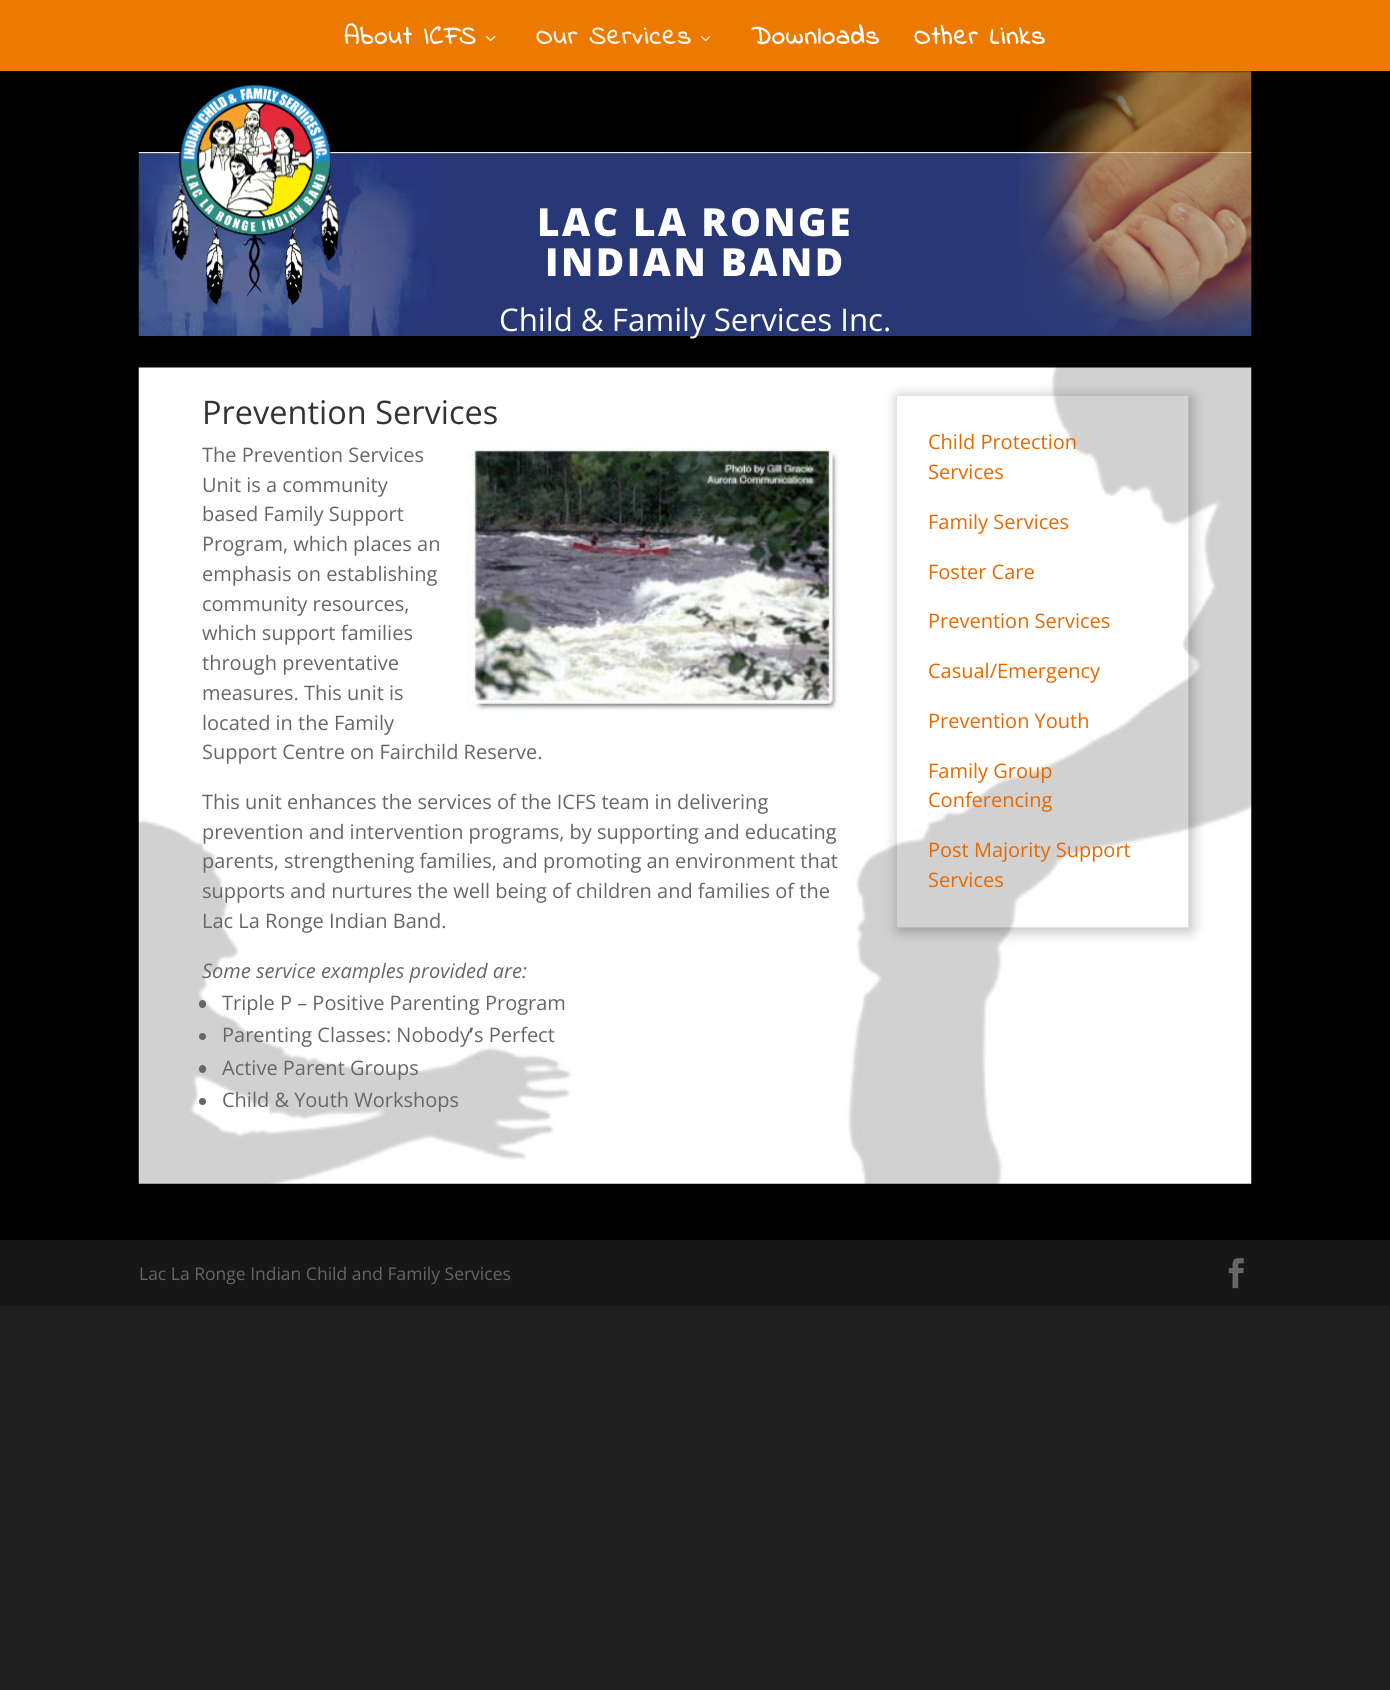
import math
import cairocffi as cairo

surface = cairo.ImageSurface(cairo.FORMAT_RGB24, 1390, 1690)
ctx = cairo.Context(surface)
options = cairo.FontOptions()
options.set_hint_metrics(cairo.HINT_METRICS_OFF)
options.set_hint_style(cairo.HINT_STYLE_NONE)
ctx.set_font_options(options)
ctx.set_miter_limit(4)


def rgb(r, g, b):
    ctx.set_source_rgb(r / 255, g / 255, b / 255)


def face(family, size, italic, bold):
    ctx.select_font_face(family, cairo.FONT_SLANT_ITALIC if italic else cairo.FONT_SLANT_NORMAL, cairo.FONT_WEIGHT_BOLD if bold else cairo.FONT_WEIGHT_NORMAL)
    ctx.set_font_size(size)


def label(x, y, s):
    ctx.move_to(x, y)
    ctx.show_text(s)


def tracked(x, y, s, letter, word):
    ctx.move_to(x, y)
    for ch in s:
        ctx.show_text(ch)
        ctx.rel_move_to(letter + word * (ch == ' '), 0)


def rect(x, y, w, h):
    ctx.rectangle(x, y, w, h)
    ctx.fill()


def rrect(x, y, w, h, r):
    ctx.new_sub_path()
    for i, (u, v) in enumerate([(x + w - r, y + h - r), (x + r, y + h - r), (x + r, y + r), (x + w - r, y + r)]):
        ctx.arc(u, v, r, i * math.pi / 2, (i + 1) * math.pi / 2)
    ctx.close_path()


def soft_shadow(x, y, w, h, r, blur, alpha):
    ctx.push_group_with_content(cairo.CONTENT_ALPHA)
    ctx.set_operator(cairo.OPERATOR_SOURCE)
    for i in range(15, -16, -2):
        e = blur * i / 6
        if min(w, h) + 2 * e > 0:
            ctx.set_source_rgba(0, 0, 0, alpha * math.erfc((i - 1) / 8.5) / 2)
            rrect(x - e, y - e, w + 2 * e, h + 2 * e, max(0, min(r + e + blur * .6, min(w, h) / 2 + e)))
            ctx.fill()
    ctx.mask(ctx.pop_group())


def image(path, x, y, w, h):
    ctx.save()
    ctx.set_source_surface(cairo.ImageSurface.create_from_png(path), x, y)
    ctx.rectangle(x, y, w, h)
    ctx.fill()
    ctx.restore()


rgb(31, 31, 31)
ctx.paint()
rgb(0, 0, 0)
rect(0, 71, 1390, 1169)
image('image2.png', 138, 147, 1114, 189)
image('image4.png', 1019, 71, 233, 265)
ctx.set_source_rgba(0, 0, 0, 0.1)
rect(1099, 71, 153, 2)
rgb(237, 122, 0)
rect(0, 0, 1390, 71)
face('Indie Flower', 26.25, 0, 1)
rgb(255, 255, 255)
tracked(344, 44, 'About ICFS', 1.25, 0)
image('image0.png', 486, 36, 10, 6)
rgb(253, 242, 230)
tracked(536, 44, 'Our Services', 1.25, 0)
image('image1.png', 701, 36, 10, 6)
rgb(255, 255, 255)
tracked(751, 44, 'Downloads', 1.25, 0)
tracked(914, 44, 'Other Links', 1.25, 0)
image('image3.png', 171, 84, 168, 221)
face('Open Sans ExtraBold', 38.75, 0, 0)
tracked(537, 236, 'LAC LA RONGE', 2.5, 0)
tracked(545, 276, 'INDIAN BAND', 2.5, 0)
face('Open Sans', 31.25, 0, 0)
label(499, 331, 'Child & Family Services Inc.')
image('image5.png', 138, 367, 1114, 817)
face('Open Sans', 32.5, 0, 0)
rgb(51, 51, 51)
label(202, 424, 'Prevention Services')
face('Open Sans', 20, 0, 0)
rgb(102, 102, 102)
label(202, 462, 'The Prevention Services')
image('image6.png', 466, 440, 375, 272)
label(202, 492, 'Unit is a community')
label(202, 521, 'based Family Support')
label(202, 551, 'Program, which places an')
label(202, 581, 'emphasis on establishing')
label(202, 611, 'community resources,')
label(202, 640, 'which support families')
label(202, 670, 'through preventative')
label(202, 700, 'measures. This unit is')
label(202, 730, 'located in the Family')
label(202, 759, 'Support Centre on Fairchild Reserve.')
label(202, 809, 'This unit enhances the services of the ICFS team in delivering')
label(202, 839, 'prevention and intervention programs, by supporting and educating')
label(202, 868, 'parents, strengthening families, and promoting an environment that')
label(202, 898, 'supports and nurtures the well being of children and families of the')
label(202, 928, 'Lac La Ronge Indian Band.')
face('Open Sans', 20, 1, 0)
label(202, 978, 'Some service examples provided are:')
rrect(199, 1000, 7, 8, 3.5)
ctx.fill()
face('Open Sans', 20, 0, 0)
label(222, 1010, 'Triple P – Positive Parenting Program')
label(222, 1042, 'Parenting Classes: Nobody')
face('Open Sans', 20, 0, 1)
label(469, 1042, '’')
face('Open Sans', 20, 0, 0)
label(474, 1042, 's Perfect')
ctx.new_path()
ctx.arc(202.5, 1036.5, 3.5, 0, 2 * math.pi)
ctx.fill()
rrect(199, 1065, 7, 8, 3.5)
ctx.fill()
label(222, 1075, 'Active Parent Groups')
ctx.new_path()
ctx.arc(202.5, 1101.5, 3.5, 0, 2 * math.pi)
ctx.fill()
label(222, 1107, 'Child & Youth Workshops')
ctx.save()
ctx.set_fill_rule(cairo.FILL_RULE_EVEN_ODD)
ctx.new_path()
ctx.move_to(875, 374)
ctx.line_to(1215, 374)
ctx.line_to(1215, 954)
ctx.line_to(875, 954)
ctx.close_path()
ctx.move_to(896, 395)
ctx.line_to(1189, 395)
ctx.line_to(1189, 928)
ctx.line_to(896, 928)
ctx.close_path()
ctx.clip()
rgb(0, 0, 0)
soft_shadow(899, 398, 292, 532, 0, 7.5, 0.3)
ctx.restore()
ctx.rectangle(896.5, 395.5, 292, 532)
ctx.set_source_rgba(0.2, 0.2, 0.2, 0.13)
ctx.set_line_width(1)
ctx.stroke()
rgb(232, 104, 0)
label(928, 449, 'Child Protection')
label(928, 479, 'Services')
label(928, 529, 'Family Services')
label(928, 579, 'Foster Care')
label(928, 628, 'Prevention Services')
label(928, 678, 'Casual/Emergency')
label(928, 728, 'Prevention Youth')
label(928, 778, 'Family Group')
label(928, 807, 'Conferencing')
label(928, 857, 'Post Majority Support')
label(928, 887, 'Services')
rgb(23, 23, 23)
rect(0, 1240, 1390, 66)
face('Open Sans', 17.5, 0, 0)
rgb(102, 102, 102)
label(139, 1280, 'Lac La Ronge Indian Child and Family Services')
image('image7.png', 1228, 1258, 16, 31)
surface.write_to_png('render.png')
